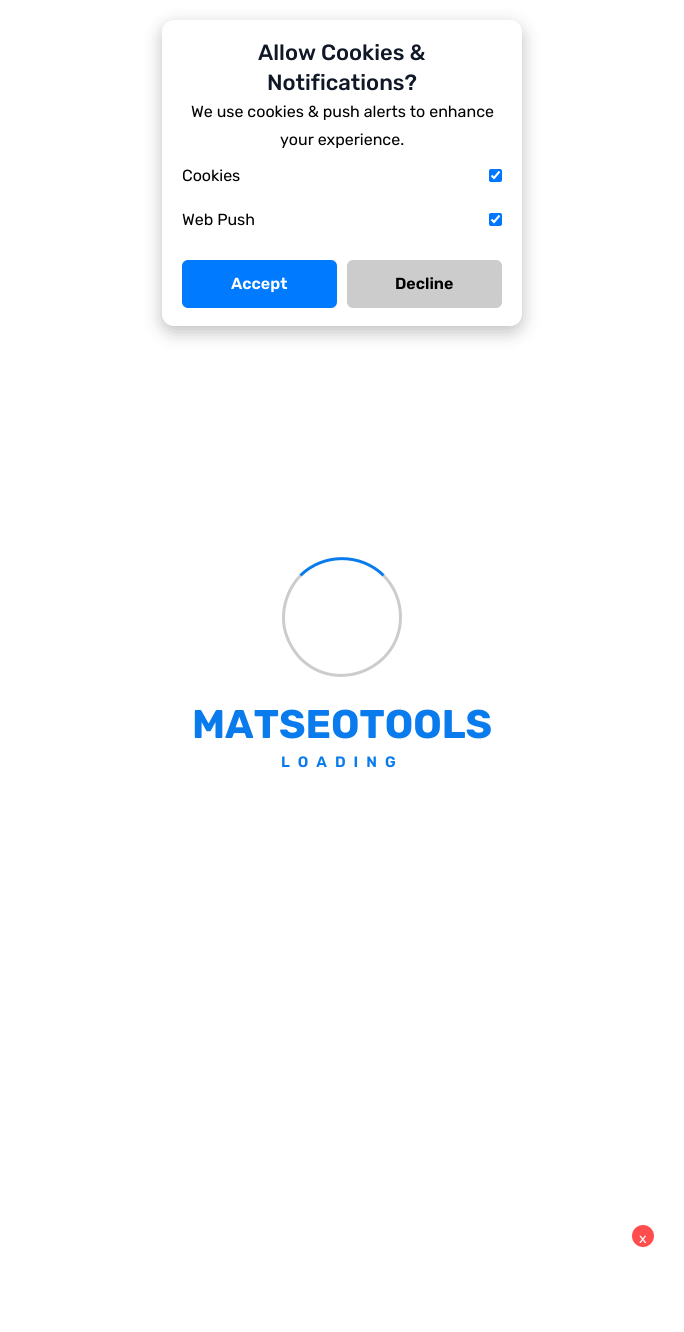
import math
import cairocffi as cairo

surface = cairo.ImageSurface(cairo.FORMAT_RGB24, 684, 1332)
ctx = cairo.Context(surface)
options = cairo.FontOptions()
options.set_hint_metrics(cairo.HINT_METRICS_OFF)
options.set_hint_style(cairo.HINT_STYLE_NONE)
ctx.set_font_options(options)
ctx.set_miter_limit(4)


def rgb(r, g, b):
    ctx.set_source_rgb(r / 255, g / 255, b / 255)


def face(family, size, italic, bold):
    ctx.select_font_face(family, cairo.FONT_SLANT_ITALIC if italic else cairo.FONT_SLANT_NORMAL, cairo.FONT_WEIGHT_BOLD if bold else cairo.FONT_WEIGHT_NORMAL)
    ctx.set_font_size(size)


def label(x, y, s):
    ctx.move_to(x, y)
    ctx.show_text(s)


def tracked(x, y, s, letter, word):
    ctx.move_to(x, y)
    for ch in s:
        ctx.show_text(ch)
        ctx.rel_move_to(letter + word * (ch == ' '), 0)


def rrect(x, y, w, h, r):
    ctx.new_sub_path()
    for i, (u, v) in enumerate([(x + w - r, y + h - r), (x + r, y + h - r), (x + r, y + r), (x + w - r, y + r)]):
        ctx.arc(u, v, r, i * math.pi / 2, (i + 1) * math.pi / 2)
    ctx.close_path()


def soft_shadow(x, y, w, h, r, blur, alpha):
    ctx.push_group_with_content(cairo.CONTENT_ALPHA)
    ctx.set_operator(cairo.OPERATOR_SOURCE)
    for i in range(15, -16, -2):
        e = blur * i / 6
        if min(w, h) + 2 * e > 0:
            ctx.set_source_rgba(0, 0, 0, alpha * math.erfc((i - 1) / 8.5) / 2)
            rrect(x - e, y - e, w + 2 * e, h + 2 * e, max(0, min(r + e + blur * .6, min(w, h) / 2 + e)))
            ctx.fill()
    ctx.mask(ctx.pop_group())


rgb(255, 255, 255)
ctx.paint()
rgb(0, 0, 0)
soft_shadow(162, 26, 360, 306, 12, 9, 0.25)
rgb(255, 255, 255)
rrect(162, 20, 360, 306, 12)
ctx.fill()
face('Rubik Medium', 22, 0, 0)
rgb(16, 24, 40)
label(258, 60, 'Allow Cookies &')
label(267, 90, 'Notifications?')
face('Rubik', 16, 0, 0)
rgb(0, 0, 0)
label(191, 117, 'We use cookies & push alerts to enhance')
label(280, 145, 'your experience.')
label(182, 181, 'Cookies')
rgb(0, 117, 255)
rrect(489, 169, 13, 13, 2)
ctx.fill()
ctx.new_path()
ctx.move_to(491.5, 175.5)
ctx.line_to(494, 178)
ctx.line_to(499.5, 171.5)
rgb(255, 255, 255)
ctx.set_line_width(2.1)
ctx.stroke()
rgb(0, 0, 0)
label(182, 225, 'Web Push')
rgb(0, 117, 255)
rrect(489, 213, 13, 13, 2)
ctx.fill()
ctx.new_path()
ctx.move_to(491.5, 219.5)
ctx.line_to(494, 222)
ctx.line_to(499.5, 215.5)
rgb(255, 255, 255)
ctx.stroke()
rgb(0, 123, 255)
rrect(182, 260, 155, 48, 6)
ctx.fill()
face('Rubik SemiBold', 16, 0, 0)
rgb(255, 255, 255)
label(231, 289, 'Accept')
rgb(204, 204, 204)
rrect(347, 260, 155, 48, 6)
ctx.fill()
rgb(0, 0, 0)
label(395, 289, 'Decline')
ctx.new_path()
ctx.move_to(300.5, 575.5)
ctx.curve_to(323, 553, 361, 553, 383.5, 575.5)
rgb(9, 123, 237)
ctx.set_line_width(3)
ctx.stroke()
ctx.new_path()
ctx.move_to(383.5, 575.5)
ctx.curve_to(394.5, 586.5, 400.5, 601.5, 400.5, 617)
ctx.curve_to(400.5, 668.5, 337, 695, 300.5, 658.5)
ctx.curve_to(292.5, 650, 287, 639.5, 284.5, 628.5)
ctx.curve_to(281, 609.5, 287, 589.5, 300.5, 575.5)
ctx.set_source_rgba(0, 0, 0, 0.2)
ctx.stroke()
face('Rubik', 40, 0, 1)
rgb(9, 123, 237)
label(192, 738, 'MATSEOTOOLS')
face('Rubik SemiBold', 15, 0, 0)
tracked(281, 767, 'LOADING', 8, 0)
rgb(255, 77, 77)
ctx.new_path()
ctx.arc(643, 1236, 11, 0, 2 * math.pi)
ctx.fill()
face('Rubik', 14, 0, 0)
rgb(255, 255, 255)
label(639, 1243, 'x')
surface.write_to_png('render.png')
